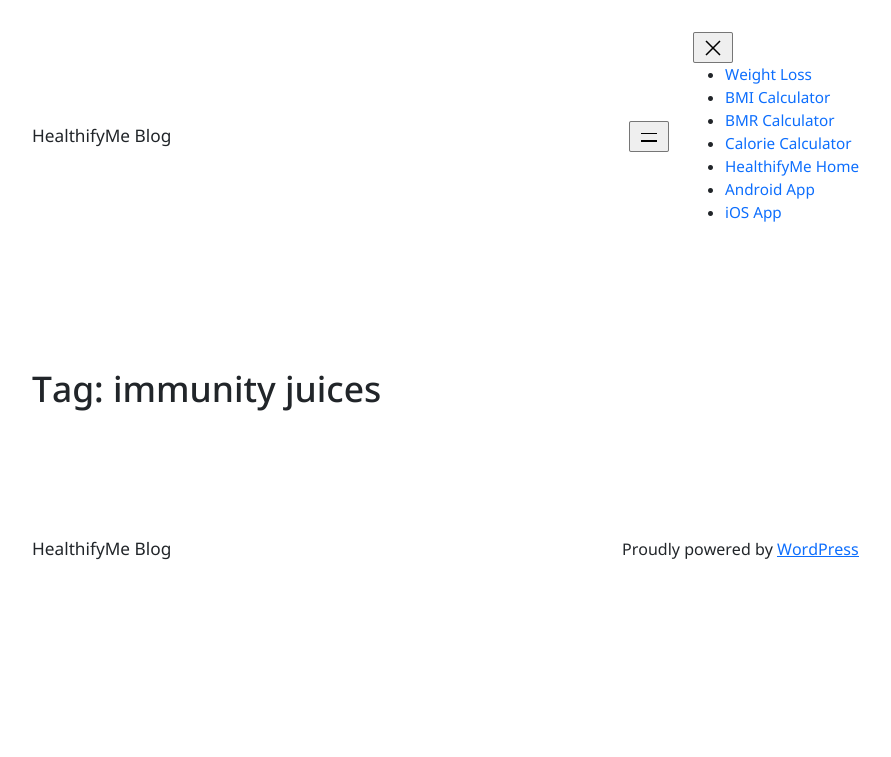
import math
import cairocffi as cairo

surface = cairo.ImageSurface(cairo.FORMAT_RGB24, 891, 757)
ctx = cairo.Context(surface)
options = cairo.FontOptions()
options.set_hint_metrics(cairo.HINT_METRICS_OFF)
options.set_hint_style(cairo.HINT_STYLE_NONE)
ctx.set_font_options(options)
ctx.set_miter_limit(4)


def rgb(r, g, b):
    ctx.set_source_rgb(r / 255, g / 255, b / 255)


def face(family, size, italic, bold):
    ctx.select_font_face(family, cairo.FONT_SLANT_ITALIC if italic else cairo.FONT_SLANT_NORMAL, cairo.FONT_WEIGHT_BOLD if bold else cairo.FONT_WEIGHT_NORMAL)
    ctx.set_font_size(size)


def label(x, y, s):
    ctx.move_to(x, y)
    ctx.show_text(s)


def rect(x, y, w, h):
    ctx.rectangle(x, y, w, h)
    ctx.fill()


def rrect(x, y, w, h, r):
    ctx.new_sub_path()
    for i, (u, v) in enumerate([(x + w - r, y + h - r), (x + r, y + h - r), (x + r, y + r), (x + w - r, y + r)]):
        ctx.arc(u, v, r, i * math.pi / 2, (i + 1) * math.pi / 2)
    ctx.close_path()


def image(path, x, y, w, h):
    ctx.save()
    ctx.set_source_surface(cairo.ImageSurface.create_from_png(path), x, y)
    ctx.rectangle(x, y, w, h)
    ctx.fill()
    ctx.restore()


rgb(255, 255, 255)
ctx.paint()
face('Noto Sans', 17.25, 0, 0)
rgb(33, 37, 41)
label(32, 142, 'HealthifyMe Blog')
rgb(239, 239, 239)
rrect(629.5, 121.5, 39, 30, 1.5)
ctx.fill_preserve()
rgb(118, 118, 118)
ctx.set_line_width(1)
ctx.stroke()
rgb(0, 0, 0)
rect(641, 133, 16, 1)
rect(641, 140, 16, 2)
rgb(239, 239, 239)
rrect(693.5, 32.5, 39, 30, 1.5)
ctx.fill_preserve()
rgb(118, 118, 118)
ctx.stroke()
image('image0.png', 705, 40, 16, 16)
rgb(33, 37, 41)
ctx.arc(710.5, 75.5, 2.5, 0, 2 * math.pi)
ctx.fill()
face('Noto Sans', 15.25, 0, 0)
rgb(13, 110, 253)
label(725, 80, 'Weight Loss')
rgb(33, 37, 41)
ctx.new_path()
ctx.arc(710.5, 98.5, 2.5, 0, 2 * math.pi)
ctx.fill()
rgb(13, 110, 253)
label(725, 103, 'BMI Calculator')
rgb(33, 37, 41)
ctx.new_path()
ctx.arc(710.5, 121.5, 2.5, 0, 2 * math.pi)
ctx.fill()
rgb(13, 110, 253)
label(725, 126, 'BMR Calculator')
rgb(33, 37, 41)
ctx.new_path()
ctx.arc(710.5, 144.5, 2.5, 0, 2 * math.pi)
ctx.fill()
rgb(13, 110, 253)
label(725, 149, 'Calorie Calculator')
rgb(33, 37, 41)
ctx.new_path()
ctx.arc(710.5, 167.5, 2.5, 0, 2 * math.pi)
ctx.fill()
rgb(13, 110, 253)
label(725, 172, 'HealthifyMe Home')
rgb(33, 37, 41)
ctx.new_path()
ctx.arc(710.5, 190.5, 2.5, 0, 2 * math.pi)
ctx.fill()
rgb(13, 110, 253)
label(725, 195, 'Android App')
rgb(33, 37, 41)
ctx.new_path()
ctx.arc(710.5, 213.5, 2.5, 0, 2 * math.pi)
ctx.fill()
rgb(13, 110, 253)
label(725, 218, 'iOS App')
face('Noto Sans Medium', 35.4, 0, 0)
rgb(33, 37, 41)
label(32, 402, 'Tag: immunity juices')
face('Noto Sans', 17.25, 0, 0)
label(32, 555, 'HealthifyMe Blog')
face('Noto Sans', 16, 0, 0)
label(622, 555, 'Proudly powered by')
rgb(13, 110, 253)
label(777, 555, 'WordPress')
rect(777, 556, 82, 1)
surface.write_to_png('render.png')
